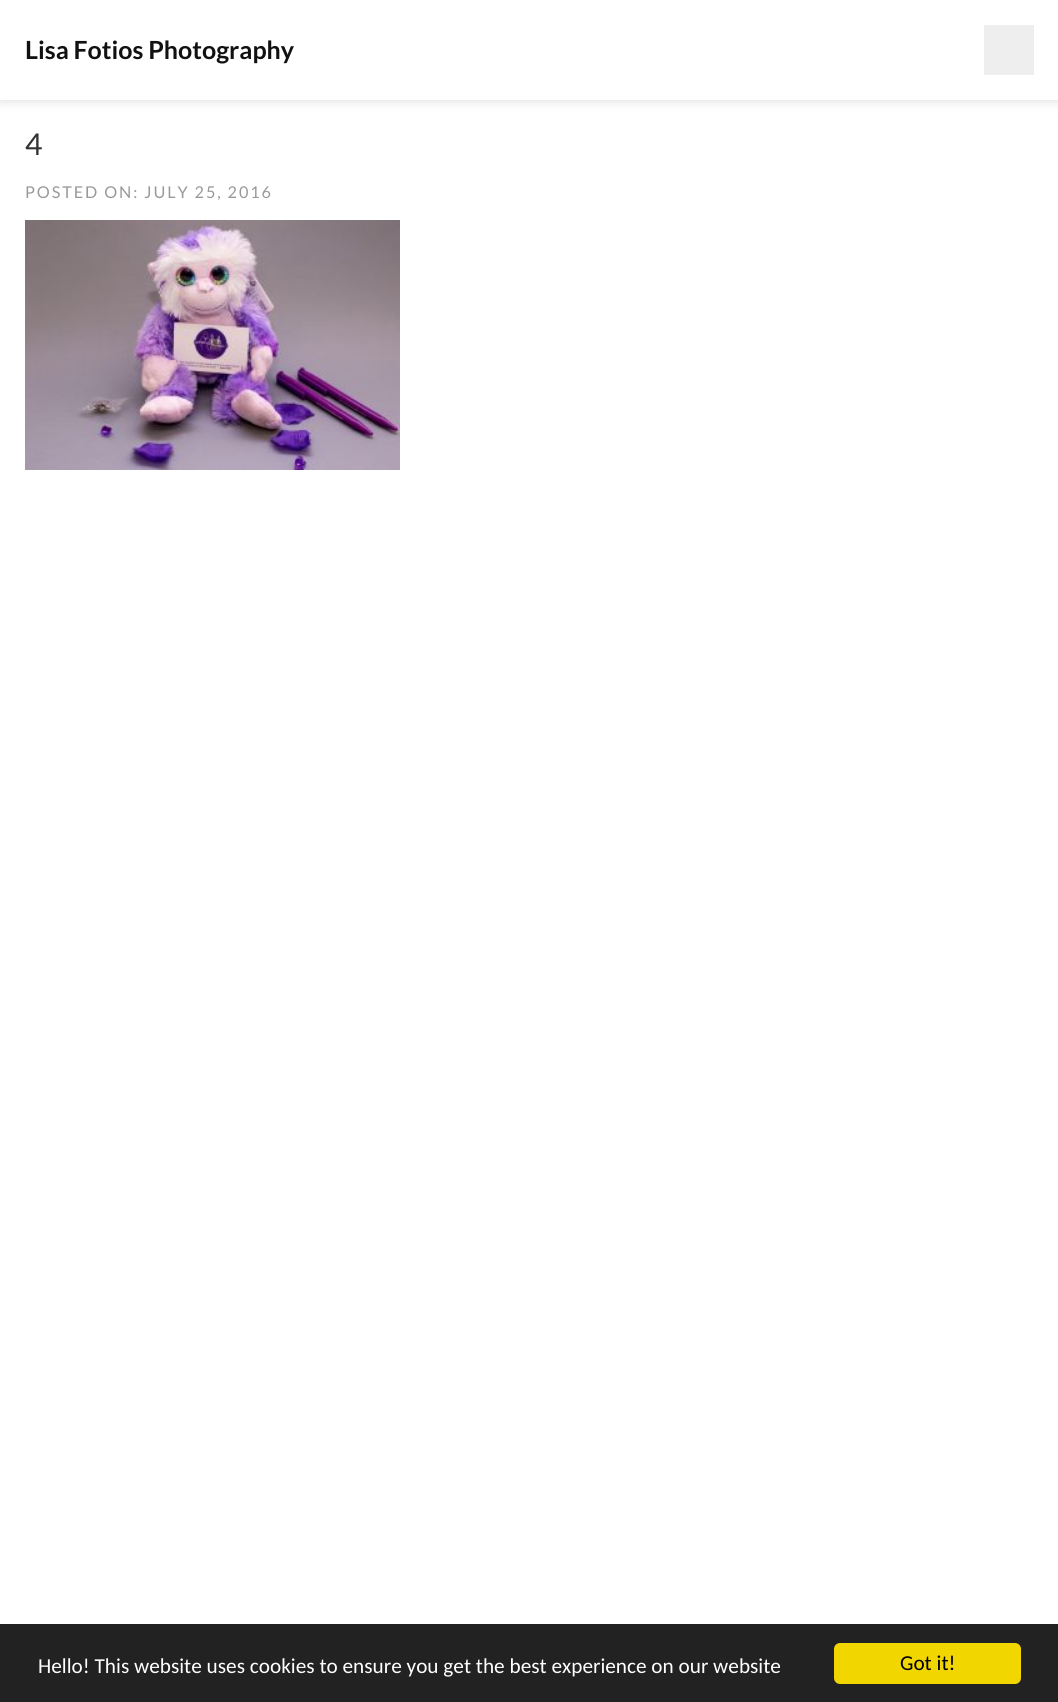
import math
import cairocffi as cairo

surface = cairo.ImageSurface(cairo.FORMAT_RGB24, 1058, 1702)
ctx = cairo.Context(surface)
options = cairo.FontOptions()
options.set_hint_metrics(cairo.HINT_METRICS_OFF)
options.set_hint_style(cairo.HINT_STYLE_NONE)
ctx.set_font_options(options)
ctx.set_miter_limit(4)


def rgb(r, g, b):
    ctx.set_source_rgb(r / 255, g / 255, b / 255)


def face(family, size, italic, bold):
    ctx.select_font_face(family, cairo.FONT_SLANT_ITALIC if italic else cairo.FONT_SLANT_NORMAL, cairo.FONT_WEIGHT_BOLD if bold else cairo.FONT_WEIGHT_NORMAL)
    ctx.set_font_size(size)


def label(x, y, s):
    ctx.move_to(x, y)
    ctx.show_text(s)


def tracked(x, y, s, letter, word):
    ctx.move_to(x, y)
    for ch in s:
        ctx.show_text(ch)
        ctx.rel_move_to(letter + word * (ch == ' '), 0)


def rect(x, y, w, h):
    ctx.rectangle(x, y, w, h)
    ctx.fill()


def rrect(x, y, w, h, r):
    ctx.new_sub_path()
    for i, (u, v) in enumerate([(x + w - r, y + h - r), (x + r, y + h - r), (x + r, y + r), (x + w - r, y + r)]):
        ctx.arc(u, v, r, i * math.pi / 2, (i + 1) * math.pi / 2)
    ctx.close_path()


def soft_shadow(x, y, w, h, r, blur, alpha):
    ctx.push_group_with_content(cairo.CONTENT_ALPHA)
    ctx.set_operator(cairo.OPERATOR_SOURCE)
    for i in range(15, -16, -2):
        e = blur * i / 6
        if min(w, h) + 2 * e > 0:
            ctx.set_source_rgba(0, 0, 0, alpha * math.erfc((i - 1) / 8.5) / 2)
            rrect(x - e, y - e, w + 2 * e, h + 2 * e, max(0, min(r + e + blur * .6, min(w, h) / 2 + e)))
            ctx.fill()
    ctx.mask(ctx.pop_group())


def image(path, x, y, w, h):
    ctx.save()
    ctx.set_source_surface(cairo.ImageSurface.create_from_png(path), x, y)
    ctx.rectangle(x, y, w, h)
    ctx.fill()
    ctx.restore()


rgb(255, 255, 255)
ctx.paint()
rgb(0, 0, 0)
soft_shadow(0, 0, 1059, 100, 0, 6, 0.15)
rgb(255, 255, 255)
rect(0, 0, 1058, 100)
face('Lato', 25, 0, 1)
rgb(17, 17, 17)
label(25, 59, 'Lisa Fotios Photography')
rgb(238, 238, 238)
rect(984, 25, 50, 50)
face('Lato', 30, 0, 0)
rgb(51, 51, 51)
label(25, 155, '4')
face('Lato', 16.25, 0, 0)
rgb(153, 153, 153)
tracked(25, 198, 'POSTED ON: JULY 25, 2016', 1.9, 0)
image('image0.png', 25, 220, 375, 250)
rgb(34, 34, 34)
rect(0, 1624, 1058, 78)
face('Carlito', 21.25, 0, 0)
rgb(255, 255, 255)
label(38, 1673, 'Hello! This website uses cookies to ensure you get the best experience on our website')
rgb(241, 214, 0)
rrect(834, 1643, 187, 41, 6)
ctx.fill()
rgb(0, 0, 0)
label(900, 1670, 'Got it!')
surface.write_to_png('render.png')
